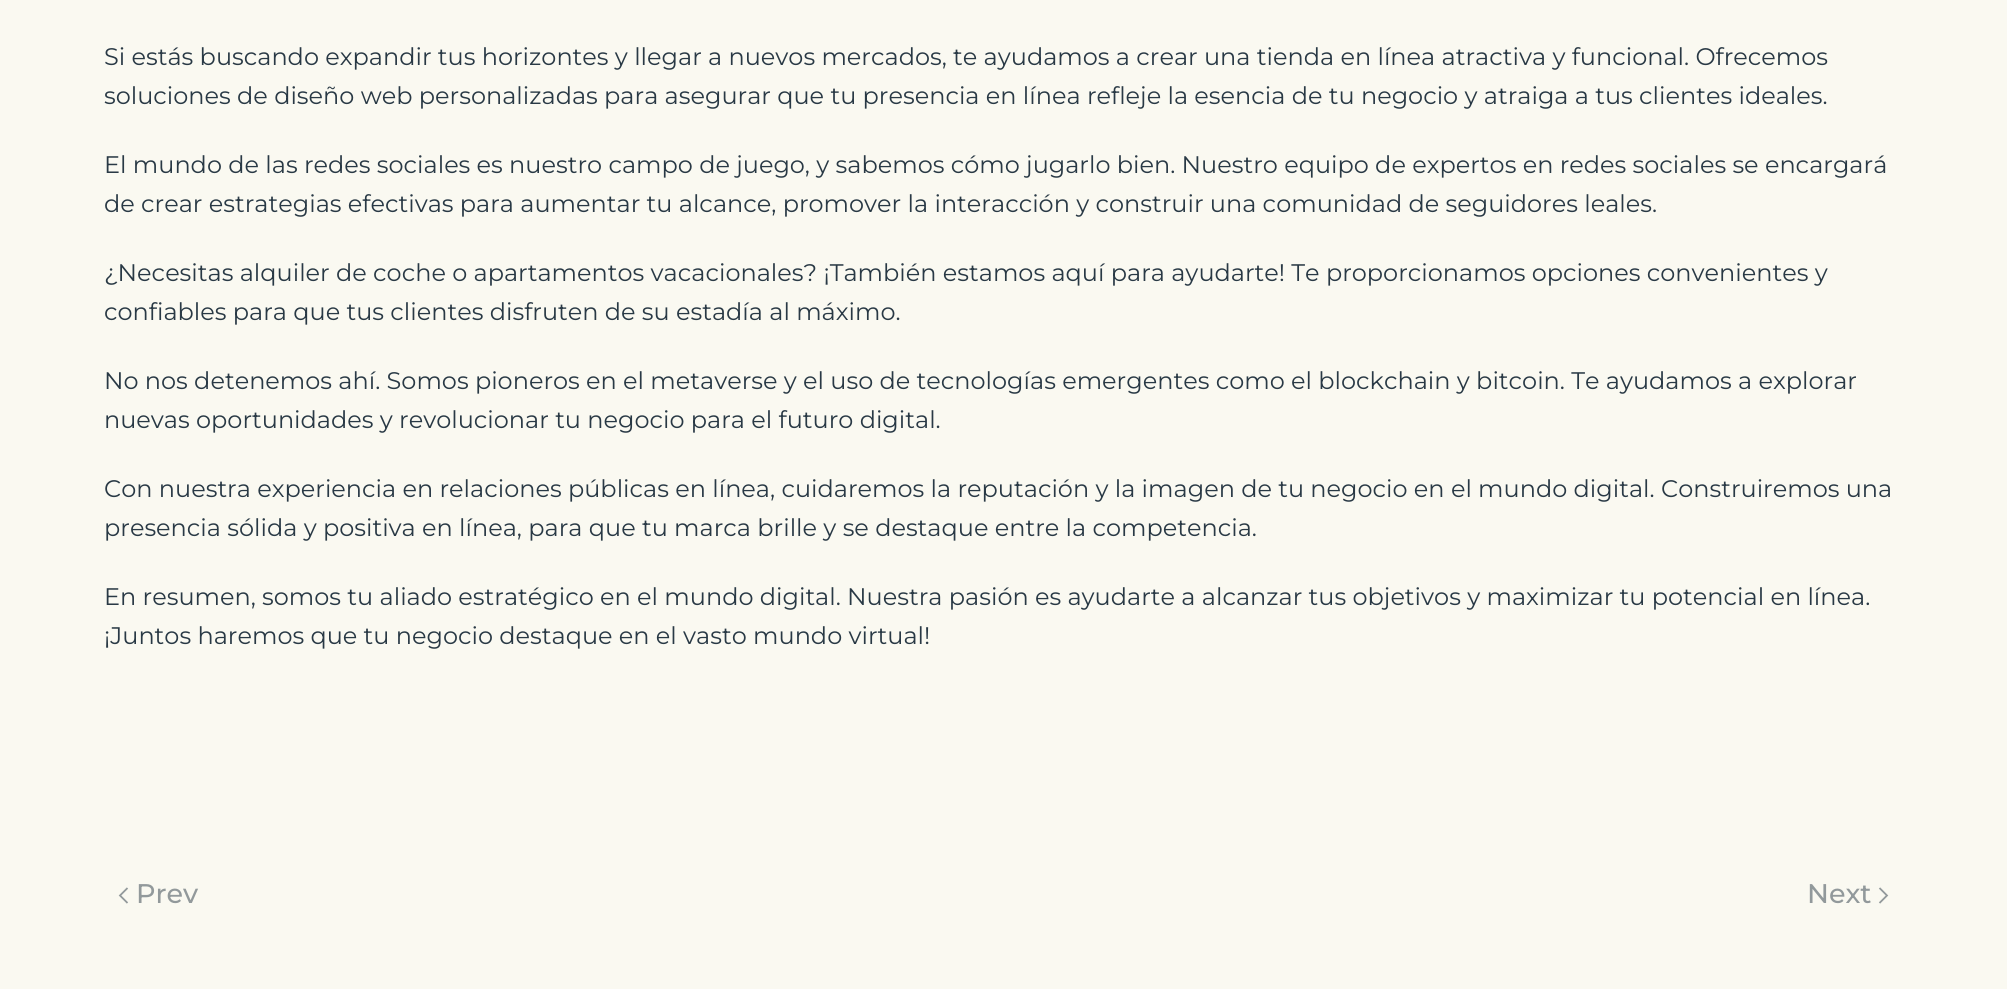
import math
import cairocffi as cairo

surface = cairo.ImageSurface(cairo.FORMAT_RGB24, 2007, 989)
ctx = cairo.Context(surface)
options = cairo.FontOptions()
options.set_hint_metrics(cairo.HINT_METRICS_OFF)
options.set_hint_style(cairo.HINT_STYLE_NONE)
ctx.set_font_options(options)
ctx.set_miter_limit(4)


def rgb(r, g, b):
    ctx.set_source_rgb(r / 255, g / 255, b / 255)


def face(family, size, italic, bold):
    ctx.select_font_face(family, cairo.FONT_SLANT_ITALIC if italic else cairo.FONT_SLANT_NORMAL, cairo.FONT_WEIGHT_BOLD if bold else cairo.FONT_WEIGHT_NORMAL)
    ctx.set_font_size(size)


def label(x, y, s):
    ctx.move_to(x, y)
    ctx.show_text(s)


rgb(250, 249, 241)
ctx.paint()
face('Montserrat Thin', 24, 0, 0)
rgb(41, 57, 69)
label(104, 65, 'Si estás buscando expandir tus horizontes y llegar a nuevos mercados, te ayudamos a crear una tienda en línea atractiva y funcional. Ofrecemos')
label(104, 104, 'soluciones de diseño web personalizadas para asegurar que tu presencia en línea refleje la esencia de tu negocio y atraiga a tus clientes ideales.')
label(104, 173, 'El mundo de las redes sociales es nuestro campo de juego, y sabemos cómo jugarlo bien. Nuestro equipo de expertos en redes sociales se encargará')
label(104, 212, 'de crear estrategias efectivas para aumentar tu alcance, promover la interacción y construir una comunidad de seguidores leales.')
label(104, 281, '¿Necesitas alquiler de coche o apartamentos vacacionales? ¡También estamos aquí para ayudarte! Te proporcionamos opciones convenientes y')
label(104, 320, 'confiables para que tus clientes disfruten de su estadía al máximo.')
label(104, 389, 'No nos detenemos ahí. Somos pioneros en el metaverse y el uso de tecnologías emergentes como el blockchain y bitcoin. Te ayudamos a explorar')
label(104, 428, 'nuevas oportunidades y revolucionar tu negocio para el futuro digital.')
label(104, 497, 'Con nuestra experiencia en relaciones públicas en línea, cuidaremos la reputación y la imagen de tu negocio en el mundo digital. Construiremos una')
label(104, 536, 'presencia sólida y positiva en línea, para que tu marca brille y se destaque entre la competencia.')
label(104, 605, 'En resumen, somos tu aliado estratégico en el mundo digital. Nuestra pasión es ayudarte a alcanzar tus objetivos y maximizar tu potencial en línea.')
label(104, 644, '¡Juntos haremos que tu negocio destaque en el vasto mundo virtual!')
ctx.new_path()
ctx.move_to(127.5, 888)
ctx.line_to(120, 895.5)
ctx.line_to(127.5, 903)
rgb(146, 153, 155)
ctx.set_line_width(1.8)
ctx.stroke()
face('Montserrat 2 Thin', 27, 0, 0)
label(136, 903, 'Prev')
label(1807, 903, 'Next')
ctx.new_path()
ctx.move_to(1879.5, 888)
ctx.line_to(1887, 895.5)
ctx.line_to(1879.5, 903)
ctx.stroke()
surface.write_to_png('render.png')
